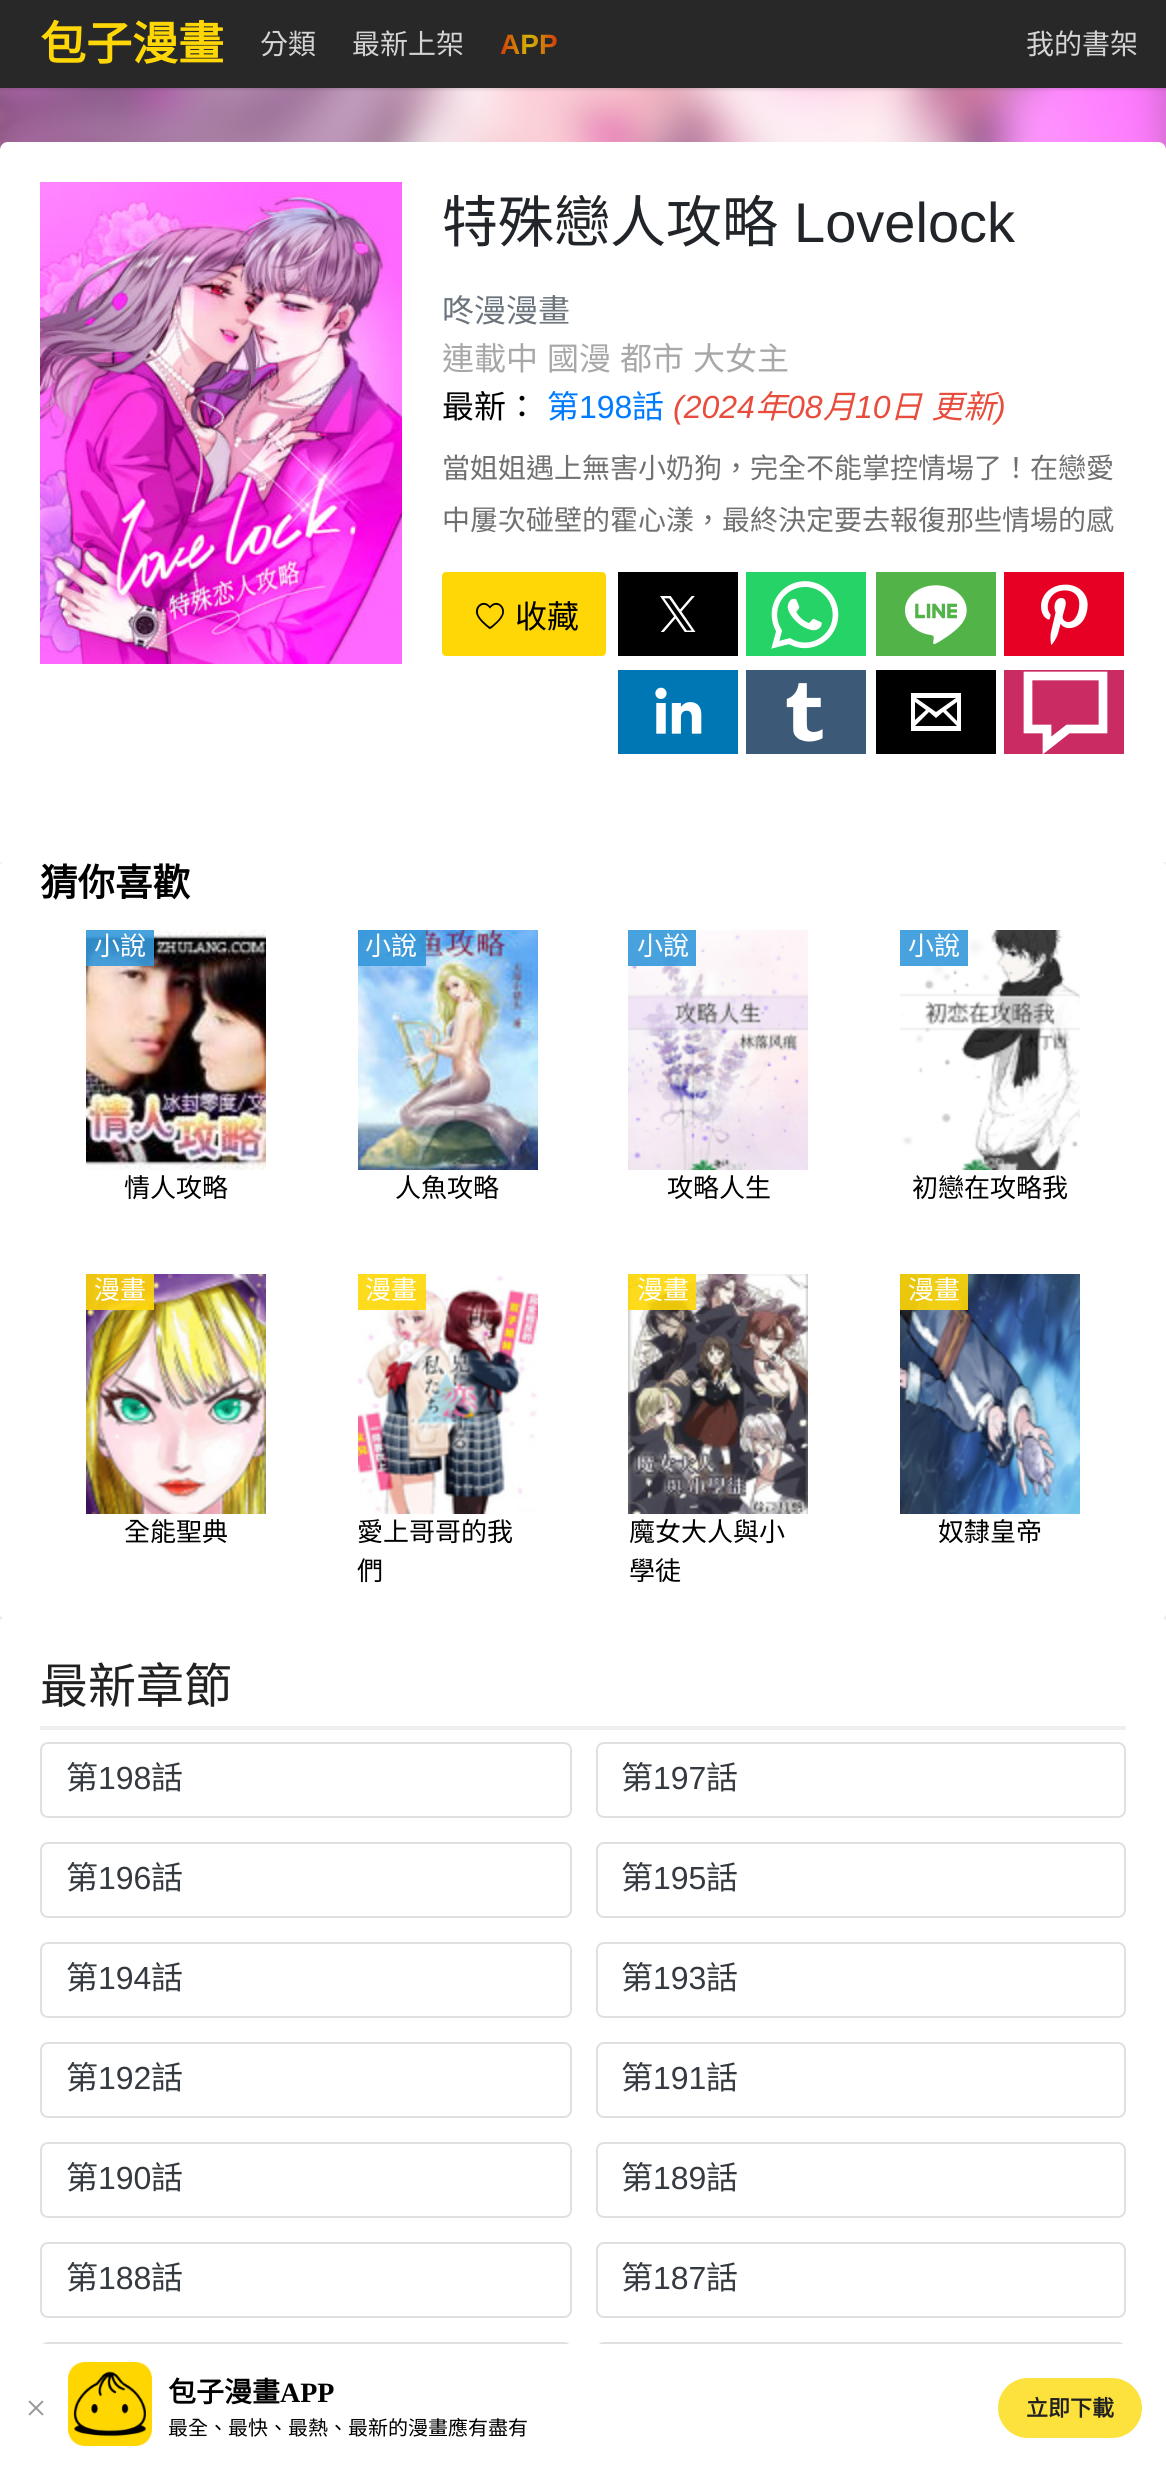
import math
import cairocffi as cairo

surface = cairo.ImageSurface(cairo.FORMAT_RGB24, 1166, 2472)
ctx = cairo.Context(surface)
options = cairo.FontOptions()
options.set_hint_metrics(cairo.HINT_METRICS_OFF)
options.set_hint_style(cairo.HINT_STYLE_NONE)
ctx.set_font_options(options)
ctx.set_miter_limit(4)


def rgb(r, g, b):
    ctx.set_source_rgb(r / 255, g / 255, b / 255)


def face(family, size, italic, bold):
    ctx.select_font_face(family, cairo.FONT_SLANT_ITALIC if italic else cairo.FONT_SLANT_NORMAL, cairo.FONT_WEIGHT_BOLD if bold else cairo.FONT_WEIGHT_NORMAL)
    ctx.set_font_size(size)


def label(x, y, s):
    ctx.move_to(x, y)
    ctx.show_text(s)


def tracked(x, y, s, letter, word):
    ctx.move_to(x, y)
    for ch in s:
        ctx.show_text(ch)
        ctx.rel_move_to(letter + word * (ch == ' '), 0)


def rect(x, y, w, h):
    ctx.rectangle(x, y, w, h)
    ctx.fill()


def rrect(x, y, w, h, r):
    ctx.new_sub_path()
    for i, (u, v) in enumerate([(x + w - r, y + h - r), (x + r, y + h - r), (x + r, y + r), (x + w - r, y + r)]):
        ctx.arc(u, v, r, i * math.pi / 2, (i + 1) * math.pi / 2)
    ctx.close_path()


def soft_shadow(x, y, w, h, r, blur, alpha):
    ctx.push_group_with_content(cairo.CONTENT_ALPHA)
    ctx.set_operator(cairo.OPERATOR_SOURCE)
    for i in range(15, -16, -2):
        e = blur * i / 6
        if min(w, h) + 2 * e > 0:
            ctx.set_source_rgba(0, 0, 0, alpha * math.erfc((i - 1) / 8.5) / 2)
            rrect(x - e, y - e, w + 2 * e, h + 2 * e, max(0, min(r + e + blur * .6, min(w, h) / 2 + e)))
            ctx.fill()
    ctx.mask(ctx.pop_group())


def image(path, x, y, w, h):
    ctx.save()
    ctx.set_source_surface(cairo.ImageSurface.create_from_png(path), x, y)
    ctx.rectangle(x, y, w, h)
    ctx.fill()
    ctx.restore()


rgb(241, 241, 241)
ctx.paint()
image('image0.png', 0, 88, 1166, 62)
image('image1.png', 0, 88, 1166, 62)
rgb(0, 0, 0)
soft_shadow(0, 2, 1166, 88, 0, 1, 0.1)
rgb(40, 40, 40)
rect(0, 0, 1166, 88)
face('Noto Sans CJK TC', 46, 0, 1)
rgb(255, 215, 6)
label(40, 60, '包子漫畫')
face('Noto Sans CJK TC', 28, 0, 0)
rgb(212, 212, 212)
label(260, 54, '分類')
label(352, 54, '最新上架')
face('Liberation Sans', 28, 0, 1)
gradient = cairo.LinearGradient(488, 44, 570, 44)
gradient.add_color_stop_rgba(0, 0.831, 0.031, 0.031, 1)
gradient.add_color_stop_rgba(0.5, 0.831, 0.706, 0.031, 1)
gradient.add_color_stop_rgba(1, 0.831, 0.031, 0.031, 1)
ctx.set_source(gradient)
label(500, 54, 'APP')
face('Noto Sans CJK TC', 28, 0, 0)
rgb(212, 212, 212)
label(1026, 54, '我的書架')
rgb(106, 115, 133)
soft_shadow(0, 864, 1166, 756, 4, 3, 0.08)
rgb(255, 255, 255)
ctx.new_path()
ctx.move_to(8, 142)
ctx.line_to(1158, 142)
ctx.curve_to(1162.5, 142, 1166, 145.5, 1166, 150)
ctx.line_to(1166, 862)
ctx.line_to(0, 862)
ctx.line_to(0, 150)
ctx.curve_to(0, 145.5, 3.5, 142, 8, 142)
ctx.close_path()
ctx.fill()
image('image2.png', 40, 182, 362, 482)
face('Noto Sans CJK TC', 56, 0, 0)
rgb(33, 37, 41)
label(442, 242, '特殊戀人攻略')
face('Liberation Sans', 56, 0, 0)
label(794, 242, 'Lovelock')
face('Noto Sans CJK TC', 32, 0, 0)
rgb(108, 117, 125)
label(442, 322, '咚漫漫畫')
rgb(168, 168, 168)
label(442, 370, '連載中')
label(547, 370, '國漫')
label(620, 370, '都市')
label(693, 370, '大女主')
rgb(0, 0, 0)
label(442, 418, '最新：')
rgb(0, 123, 255)
label(547, 418, '第')
label(632, 418, '話')
face('Liberation Sans', 32, 1, 0)
rgb(231, 76, 60)
label(673, 418, '(2024')
face('Noto Sans CJK TC', 32, 1, 0)
label(755, 418, '年')
label(823, 418, '月')
tracked(890, 418, '日 更新', 0, 2)
face('Liberation Sans', 32, 0, 0)
rgb(0, 123, 255)
label(579, 418, '198')
face('Liberation Sans', 32, 1, 0)
rgb(231, 76, 60)
label(787, 418, '08')
label(855, 418, '10')
label(995, 418, ')')
face('Noto Sans CJK TC', 28, 0, 0)
rgb(112, 112, 112)
label(442, 478, '當姐姐遇上無害小奶狗，完全不能掌控情場了！在戀愛')
label(442, 530, '中屢次碰壁的霍心漾，最終決定要去報復那些情場的感')
rgb(255, 215, 6)
rrect(442, 572, 164, 84, 4)
ctx.fill()
image('image3.png', 475, 602, 29, 27)
face('Noto Sans CJK TC', 32, 0, 0)
rgb(0, 0, 0)
label(515, 628, '收藏')
rect(618, 572, 120, 84)
image('image4.png', 660, 596, 36, 36)
rgb(37, 211, 102)
rect(746, 572, 120, 84)
image('image5.png', 771, 581, 68, 68)
rgb(82, 180, 72)
rect(876, 572, 120, 84)
image('image6.png', 905, 585, 62, 59)
rgb(230, 0, 35)
rect(1004, 572, 120, 84)
image('image7.png', 1041, 584, 47, 61)
rgb(0, 119, 181)
rect(618, 670, 120, 84)
image('image8.png', 655, 687, 47, 47)
rgb(60, 90, 119)
rect(746, 670, 120, 84)
image('image9.png', 786, 683, 37, 59)
rgb(0, 0, 0)
rect(876, 670, 120, 84)
rgb(255, 255, 255)
ctx.new_path()
ctx.move_to(911, 693)
ctx.line_to(911, 731)
ctx.line_to(961, 731)
ctx.line_to(961, 693)
ctx.close_path()
ctx.move_to(956, 698)
ctx.line_to(936, 712)
ctx.line_to(916, 698)
ctx.close_path()
ctx.move_to(915, 702)
ctx.line_to(926, 710)
ctx.line_to(915, 720)
ctx.close_path()
ctx.move_to(915, 726)
ctx.line_to(929, 712)
ctx.line_to(936, 718)
ctx.line_to(943, 712)
ctx.line_to(957, 726)
ctx.close_path()
ctx.move_to(957, 721)
ctx.line_to(946, 710)
ctx.line_to(957, 702)
ctx.close_path()
ctx.fill()
rgb(202, 43, 99)
rect(1004, 670, 120, 84)
ctx.new_path()
ctx.move_to(1047, 745.5)
ctx.line_to(1047, 729)
ctx.line_to(1028, 729)
ctx.line_to(1028, 676)
ctx.line_to(1103, 676)
ctx.line_to(1103, 729)
ctx.line_to(1068, 729)
ctx.close_path()
rgb(255, 255, 255)
ctx.set_line_width(8.7)
ctx.stroke()
rrect(0, 862, 1166, 756, 4)
ctx.fill()
face('Noto Sans CJK TC', 37.5, 0, 1)
rgb(0, 0, 0)
label(40, 896, '猜你喜歡')
image('image10.png', 86, 930, 180, 240)
ctx.set_source_rgba(0.204, 0.596, 0.859, 0.9)
rect(86, 930, 68, 36)
face('Noto Sans CJK TC', 26, 0, 0)
rgb(255, 255, 255)
label(94, 955, '小說')
rgb(0, 0, 0)
label(124, 1197, '情人攻略')
image('image11.png', 358, 930, 180, 240)
ctx.set_source_rgba(0.204, 0.596, 0.859, 0.9)
rect(358, 930, 68, 36)
rgb(255, 255, 255)
label(365, 955, '小說')
rgb(0, 0, 0)
label(395, 1197, '人魚攻略')
image('image12.png', 628, 930, 180, 240)
ctx.set_source_rgba(0.204, 0.596, 0.859, 0.9)
rect(628, 930, 68, 36)
rgb(255, 255, 255)
label(637, 955, '小說')
rgb(0, 0, 0)
label(667, 1197, '攻略人生')
image('image13.png', 900, 930, 180, 240)
ctx.set_source_rgba(0.204, 0.596, 0.859, 0.9)
rect(900, 930, 68, 36)
rgb(255, 255, 255)
label(908, 955, '小說')
rgb(0, 0, 0)
label(912, 1197, '初戀在攻略我')
image('image14.png', 86, 1274, 180, 240)
ctx.set_source_rgba(1, 0.843, 0.024, 0.9)
rect(86, 1274, 68, 36)
rgb(255, 255, 255)
label(94, 1299, '漫畫')
rgb(0, 0, 0)
label(124, 1541, '全能聖典')
image('image15.png', 358, 1274, 180, 240)
ctx.set_source_rgba(1, 0.843, 0.024, 0.9)
rect(358, 1274, 68, 36)
rgb(255, 255, 255)
label(365, 1299, '漫畫')
rgb(0, 0, 0)
label(357, 1541, '愛上哥哥的我')
label(357, 1580, '們')
image('image16.png', 628, 1274, 180, 240)
ctx.set_source_rgba(1, 0.843, 0.024, 0.9)
rect(628, 1274, 68, 36)
rgb(255, 255, 255)
label(637, 1299, '漫畫')
rgb(0, 0, 0)
label(629, 1541, '魔女大人與小')
label(629, 1580, '學徒')
image('image17.png', 900, 1274, 180, 240)
ctx.set_source_rgba(1, 0.843, 0.024, 0.9)
rect(900, 1274, 68, 36)
rgb(255, 255, 255)
label(908, 1299, '漫畫')
rgb(0, 0, 0)
label(938, 1541, '奴隸皇帝')
rgb(255, 255, 255)
rrect(0, 1618, 1166, 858, 4)
ctx.fill()
rgb(238, 238, 238)
rect(40, 1726, 1086, 4)
face('Noto Sans CJK TC', 48, 0, 0)
rgb(33, 33, 33)
label(40, 1703, '最新章節')
rrect(41, 1743, 530, 74, 7)
rgb(224, 224, 224)
ctx.set_line_width(2)
ctx.stroke()
face('Noto Sans CJK TC', 32, 0, 0)
rgb(52, 58, 64)
label(66, 1789, '第')
face('Liberation Sans', 32, 0, 0)
label(98, 1789, '198')
face('Noto Sans CJK TC', 32, 0, 0)
label(151, 1789, '話')
rrect(597, 1743, 528, 74, 7)
rgb(224, 224, 224)
ctx.stroke()
rgb(52, 58, 64)
label(621, 1789, '第')
face('Liberation Sans', 32, 0, 0)
label(653, 1789, '197')
face('Noto Sans CJK TC', 32, 0, 0)
label(706, 1789, '話')
rrect(41, 1843, 530, 74, 7)
rgb(224, 224, 224)
ctx.stroke()
rgb(52, 58, 64)
label(66, 1889, '第')
face('Liberation Sans', 32, 0, 0)
label(98, 1889, '196')
face('Noto Sans CJK TC', 32, 0, 0)
label(151, 1889, '話')
rrect(597, 1843, 528, 74, 7)
rgb(224, 224, 224)
ctx.stroke()
rgb(52, 58, 64)
label(621, 1889, '第')
face('Liberation Sans', 32, 0, 0)
label(653, 1889, '195')
face('Noto Sans CJK TC', 32, 0, 0)
label(706, 1889, '話')
rrect(41, 1943, 530, 74, 7)
rgb(224, 224, 224)
ctx.stroke()
rgb(52, 58, 64)
label(66, 1989, '第')
face('Liberation Sans', 32, 0, 0)
label(98, 1989, '194')
face('Noto Sans CJK TC', 32, 0, 0)
label(151, 1989, '話')
rrect(597, 1943, 528, 74, 7)
rgb(224, 224, 224)
ctx.stroke()
rgb(52, 58, 64)
label(621, 1989, '第')
face('Liberation Sans', 32, 0, 0)
label(653, 1989, '193')
face('Noto Sans CJK TC', 32, 0, 0)
label(706, 1989, '話')
rrect(41, 2043, 530, 74, 7)
rgb(224, 224, 224)
ctx.stroke()
rgb(52, 58, 64)
label(66, 2089, '第')
face('Liberation Sans', 32, 0, 0)
label(98, 2089, '192')
face('Noto Sans CJK TC', 32, 0, 0)
label(151, 2089, '話')
rrect(597, 2043, 528, 74, 7)
rgb(224, 224, 224)
ctx.stroke()
rgb(52, 58, 64)
label(621, 2089, '第')
face('Liberation Sans', 32, 0, 0)
label(653, 2089, '191')
face('Noto Sans CJK TC', 32, 0, 0)
label(706, 2089, '話')
rrect(41, 2143, 530, 74, 7)
rgb(224, 224, 224)
ctx.stroke()
rgb(52, 58, 64)
label(66, 2189, '第')
face('Liberation Sans', 32, 0, 0)
label(98, 2189, '190')
face('Noto Sans CJK TC', 32, 0, 0)
label(151, 2189, '話')
rrect(597, 2143, 528, 74, 7)
rgb(224, 224, 224)
ctx.stroke()
rgb(52, 58, 64)
label(621, 2189, '第')
face('Liberation Sans', 32, 0, 0)
label(653, 2189, '189')
face('Noto Sans CJK TC', 32, 0, 0)
label(706, 2189, '話')
rrect(41, 2243, 530, 74, 7)
rgb(224, 224, 224)
ctx.stroke()
rgb(52, 58, 64)
label(66, 2289, '第')
face('Liberation Sans', 32, 0, 0)
label(98, 2289, '188')
face('Noto Sans CJK TC', 32, 0, 0)
label(151, 2289, '話')
rrect(597, 2243, 528, 74, 7)
rgb(224, 224, 224)
ctx.stroke()
rgb(52, 58, 64)
label(621, 2289, '第')
face('Liberation Sans', 32, 0, 0)
label(653, 2289, '187')
face('Noto Sans CJK TC', 32, 0, 0)
label(706, 2289, '話')
rrect(41, 2343, 530, 74, 7)
rgb(224, 224, 224)
ctx.stroke()
rrect(597, 2343, 528, 74, 7)
ctx.stroke()
rrect(41, 2443, 530, 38, 7)
ctx.stroke()
rrect(597, 2443, 528, 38, 7)
ctx.stroke()
ctx.set_source_rgba(1, 1, 1, 0.98)
rect(40, 2344, 1086, 128)
image('image18.png', 28, 2400, 16, 16)
image('image19.png', 68, 2362, 84, 84)
face('Noto Sans CJK TC', 28, 0, 1)
rgb(0, 0, 0)
label(168, 2402, '包子漫畫')
face('Liberation Serif', 28, 0, 1)
label(280, 2402, 'APP')
face('Noto Sans CJK TC', 20, 0, 0)
label(168, 2435, '最全、最快、最熱、最新的漫畫應有盡有')
rgb(253, 226, 61)
rrect(998, 2378, 144, 60, 30)
ctx.fill()
face('Noto Sans CJK TC', 22, 0, 1)
rgb(33, 33, 33)
label(1026, 2416, '立即下載')
surface.write_to_png('render.png')
